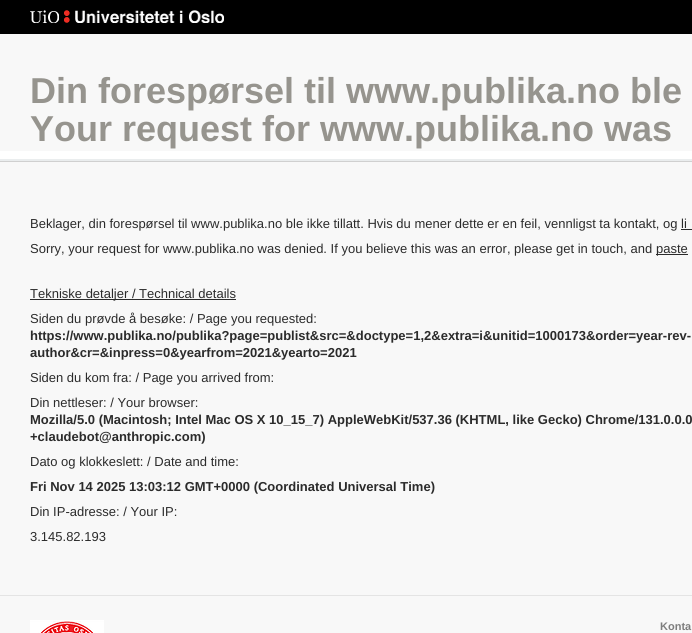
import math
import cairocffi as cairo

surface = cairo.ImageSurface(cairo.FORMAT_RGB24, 692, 633)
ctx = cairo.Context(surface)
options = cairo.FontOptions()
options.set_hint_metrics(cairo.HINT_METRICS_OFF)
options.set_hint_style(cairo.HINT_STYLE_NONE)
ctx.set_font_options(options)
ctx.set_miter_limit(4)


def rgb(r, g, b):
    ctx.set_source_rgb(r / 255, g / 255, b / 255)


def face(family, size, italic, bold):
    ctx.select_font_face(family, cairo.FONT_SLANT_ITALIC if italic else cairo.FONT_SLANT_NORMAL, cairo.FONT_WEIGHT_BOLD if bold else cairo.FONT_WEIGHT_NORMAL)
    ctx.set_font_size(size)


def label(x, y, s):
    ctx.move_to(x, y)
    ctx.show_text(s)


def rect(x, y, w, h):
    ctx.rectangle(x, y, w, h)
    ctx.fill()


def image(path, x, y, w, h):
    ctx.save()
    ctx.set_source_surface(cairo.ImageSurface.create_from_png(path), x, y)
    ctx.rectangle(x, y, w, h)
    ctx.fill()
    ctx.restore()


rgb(248, 248, 248)
ctx.paint()
image('image0.png', 0, 151, 692, 11)
rgb(0, 0, 0)
rect(0, 0, 692, 34)
image('image1.png', 30, 10, 194, 13)
face('Liberation Sans', 36, 0, 1)
rgb(150, 148, 142)
label(30, 103, 'Din forespørsel til www.publika.no ble')
label(30, 141, 'Your request for www.publika.no was')
face('Liberation Sans', 13, 0, 0)
rgb(43, 43, 43)
label(30, 228, 'Beklager, din forespørsel til www.publika.no ble ikke tillatt. Hvis du mener dette er en feil, vennligst ta kontakt, og li')
rect(681, 229, 11, 1)
label(30, 253, 'Sorry, your request for www.publika.no was denied. If you believe this was an error, please get in touch, and')
rect(656, 254, 32, 1)
label(656, 253, 'paste')
rect(30, 299, 206, 1)
label(30, 298, 'Tekniske detaljer / Technical details')
label(30, 323, 'Siden du prøvde å besøke: / Page you requested:')
face('Liberation Sans', 13, 0, 1)
label(30, 340, 'https://www.publika.no/publika?page=publist&src=&doctype=1,2&extra=i&unitid=1000173&order=year-rev-')
label(30, 357, 'author&cr=&inpress=0&yearfrom=2021&yearto=2021')
face('Liberation Sans', 13, 0, 0)
label(30, 382, 'Siden du kom fra: / Page you arrived from:')
label(30, 407, 'Din nettleser: / Your browser:')
face('Liberation Sans', 13, 0, 1)
label(30, 424, 'Mozilla/5.0 (Macintosh; Intel Mac OS X 10_15_7) AppleWebKit/537.36 (KHTML, like Gecko) Chrome/131.0.0.0')
label(30, 441, '+claudebot@anthropic.com)')
face('Liberation Sans', 13, 0, 0)
label(30, 466, 'Dato og klokkeslett: / Date and time:')
face('Liberation Sans', 13, 0, 1)
label(30, 491, 'Fri Nov 14 2025 13:03:12 GMT+0000 (Coordinated Universal Time)')
face('Liberation Sans', 13, 0, 0)
label(30, 516, 'Din IP-adresse: / Your IP:')
label(30, 541, '3.145.82.193')
rgb(228, 228, 228)
rect(0, 595, 692, 1)
image('image2.png', 30, 620, 74, 13)
face('Liberation Sans', 11, 0, 1)
rgb(126, 126, 126)
label(660, 630, 'Konta')
surface.write_to_png('render.png')
